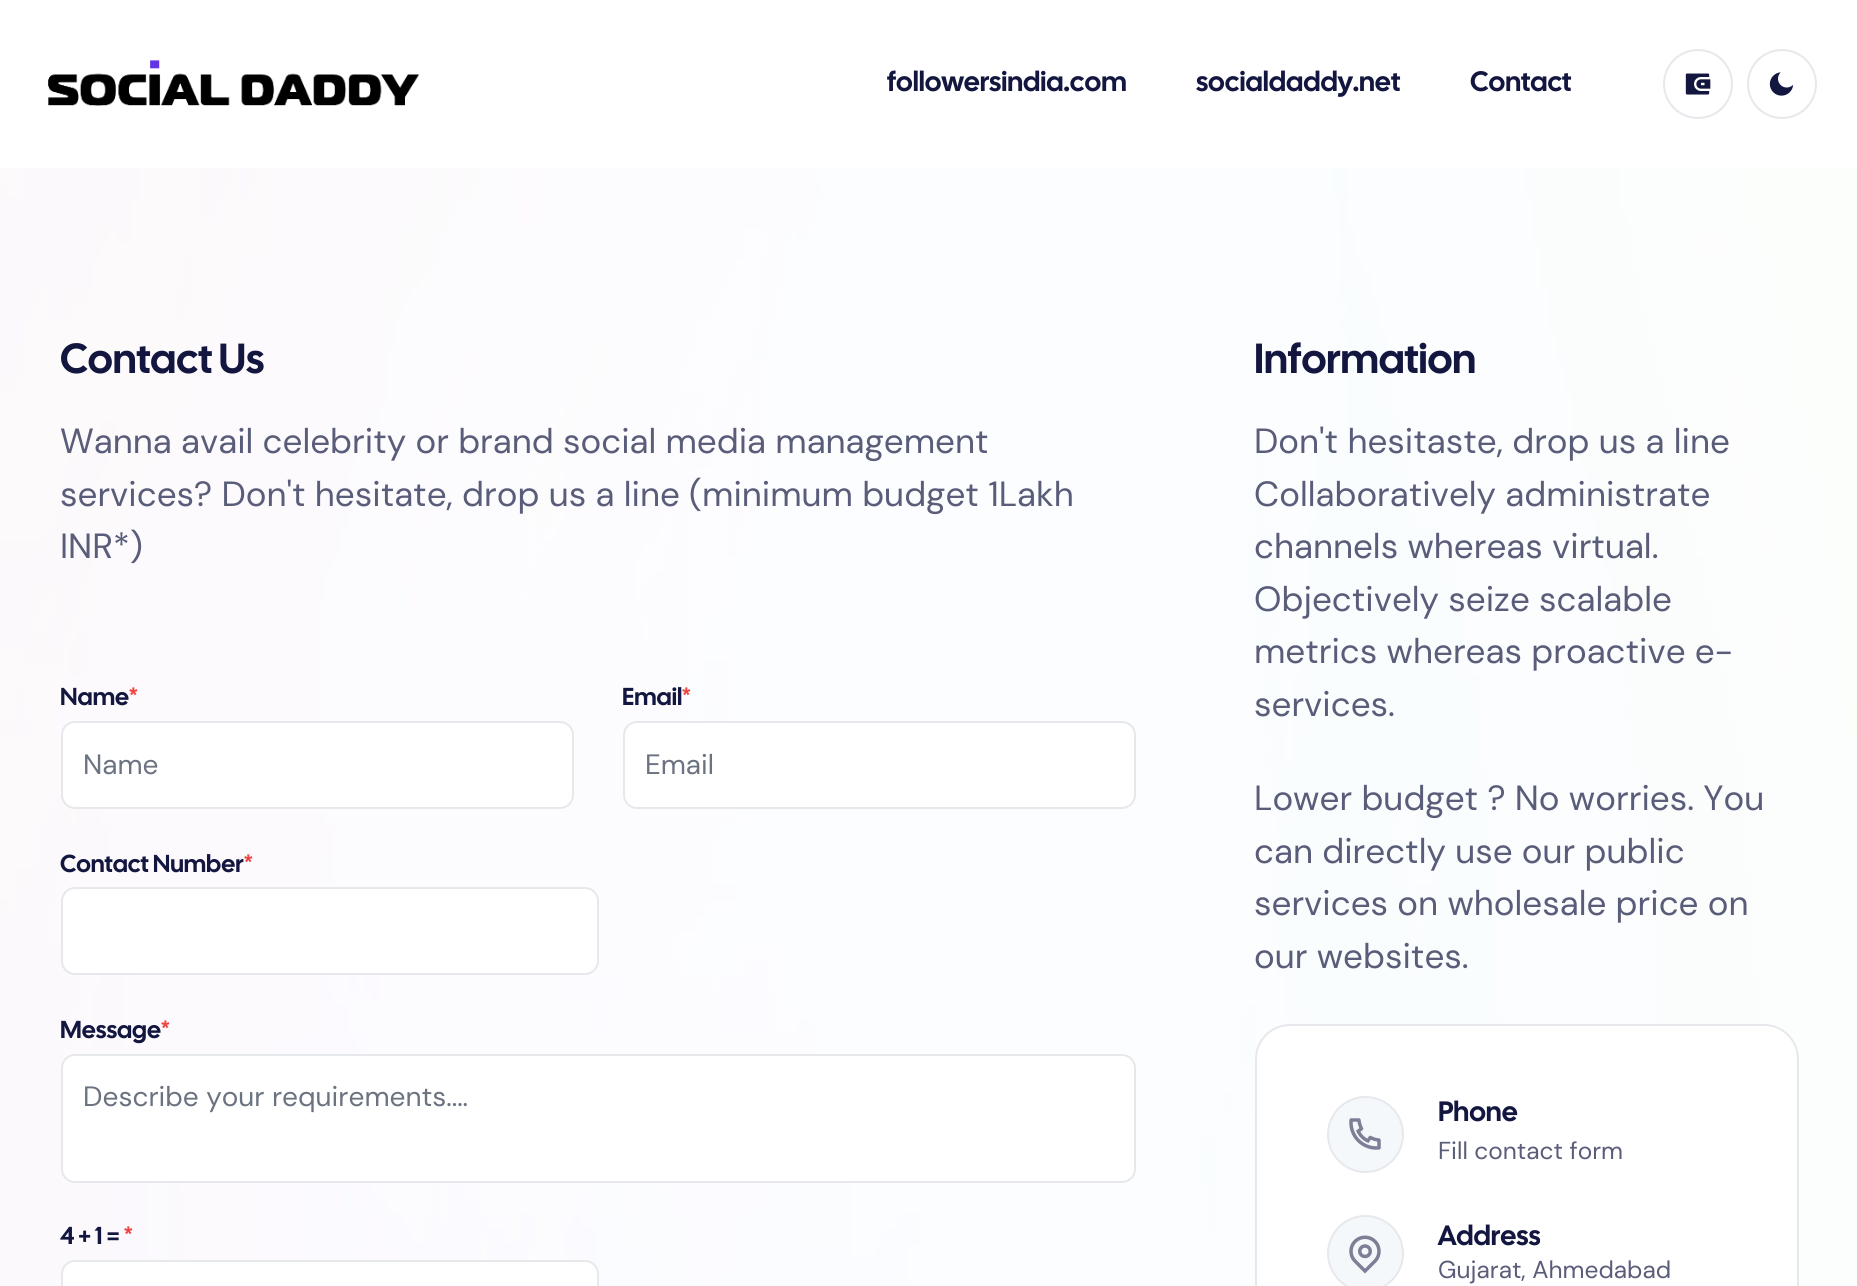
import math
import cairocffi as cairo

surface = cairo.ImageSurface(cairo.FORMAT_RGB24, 1857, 1286)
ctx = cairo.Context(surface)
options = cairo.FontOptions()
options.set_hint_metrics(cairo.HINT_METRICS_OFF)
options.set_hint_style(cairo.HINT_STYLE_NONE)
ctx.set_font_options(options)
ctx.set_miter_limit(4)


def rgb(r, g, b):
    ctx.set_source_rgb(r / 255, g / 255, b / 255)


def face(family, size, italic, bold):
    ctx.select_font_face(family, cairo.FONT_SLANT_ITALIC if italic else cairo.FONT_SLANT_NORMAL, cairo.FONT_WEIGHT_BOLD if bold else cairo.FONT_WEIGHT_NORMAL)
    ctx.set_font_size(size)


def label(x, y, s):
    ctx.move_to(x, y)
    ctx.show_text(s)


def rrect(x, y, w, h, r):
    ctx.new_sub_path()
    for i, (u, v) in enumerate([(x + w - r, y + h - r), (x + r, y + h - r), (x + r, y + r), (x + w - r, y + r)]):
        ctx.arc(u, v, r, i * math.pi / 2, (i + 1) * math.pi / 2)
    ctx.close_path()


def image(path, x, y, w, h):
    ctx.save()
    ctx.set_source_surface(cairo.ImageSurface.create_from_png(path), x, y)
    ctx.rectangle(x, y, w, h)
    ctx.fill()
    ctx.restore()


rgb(255, 255, 255)
ctx.paint()
image('image0.png', 48, 60, 372, 46)
face('Cal Sans SemiBold', 28, 0, 0)
rgb(19, 23, 64)
label(887, 91, 'followersindia.com')
label(1196, 91, 'socialdaddy.net')
label(1470, 91, 'Contact')
ctx.new_path()
ctx.arc(1698, 84, 34, 0, 2 * math.pi)
rgb(231, 232, 236)
ctx.stroke()
image('image1.png', 1685, 73, 26, 22)
ctx.arc(1782, 84, 34, 0, 2 * math.pi)
ctx.stroke()
image('image2.png', 1769, 72, 25, 24)
image('image3.png', 0, 168, 1857, 1118)
face('Cal Sans SemiBold', 42, 0, 0)
rgb(19, 23, 64)
label(60, 373, 'Contact Us')
face('DM Sans', 35, 0, 0)
rgb(90, 93, 121)
label(60, 453, 'Wanna avail celebrity or brand social media management')
label(60, 506, 'services? Don\'t hesitate, drop us a line (minimum budget 1Lakh')
label(60, 558, 'INR*)')
face('Cal Sans SemiBold', 24.5, 0, 0)
rgb(19, 23, 64)
label(60, 705, 'Name')
rgb(239, 68, 68)
label(129, 705, '*')
rgb(255, 255, 255)
rrect(62, 722, 511, 86, 13)
ctx.fill_preserve()
rgb(231, 232, 236)
ctx.stroke()
face('DM Sans', 28, 0, 0)
rgb(107, 114, 128)
label(83, 774, 'Name')
face('Cal Sans SemiBold', 24.5, 0, 0)
rgb(19, 23, 64)
label(622, 705, 'Email')
rgb(239, 68, 68)
label(682, 705, '*')
rgb(255, 255, 255)
rrect(624, 722, 511, 86, 13)
ctx.fill_preserve()
rgb(231, 232, 236)
ctx.stroke()
face('DM Sans', 28, 0, 0)
rgb(107, 114, 128)
label(645, 774, 'Email')
face('Cal Sans SemiBold', 24.5, 0, 0)
rgb(19, 23, 64)
label(60, 872, 'Contact Number')
rgb(239, 68, 68)
label(244, 872, '*')
rgb(255, 255, 255)
rrect(62, 888, 536, 86, 13)
ctx.fill_preserve()
rgb(231, 232, 236)
ctx.stroke()
rgb(19, 23, 64)
label(60, 1038, 'Message')
rgb(239, 68, 68)
label(161, 1038, '*')
rgb(255, 255, 255)
rrect(62, 1055, 1073, 127, 13)
ctx.fill_preserve()
rgb(231, 232, 236)
ctx.stroke()
face('DM Sans', 28, 0, 0)
rgb(107, 114, 128)
label(83, 1106, 'Describe your requirements....')
face('Cal Sans SemiBold', 24.5, 0, 0)
rgb(19, 23, 64)
label(60, 1244, '4 + 1 =')
rgb(239, 68, 68)
label(124, 1244, '*')
rgb(255, 255, 255)
rrect(62, 1261, 536, 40, 13)
ctx.fill_preserve()
rgb(231, 232, 236)
ctx.stroke()
face('Cal Sans SemiBold', 42, 0, 0)
rgb(19, 23, 64)
label(1254, 373, 'Information')
face('DM Sans', 35, 0, 0)
rgb(90, 93, 121)
label(1254, 453, 'Don\'t hesitaste, drop us a line')
label(1254, 506, 'Collaboratively administrate')
label(1254, 558, 'channels whereas virtual.')
label(1254, 611, 'Objectively seize scalable')
label(1254, 663, 'metrics whereas proactive e-')
label(1254, 716, 'services.')
label(1254, 810, 'Lower budget ? No worries. You')
label(1254, 863, 'can directly use our public')
label(1254, 915, 'services on wholesale price on')
label(1254, 968, 'our websites.')
rgb(255, 255, 255)
rrect(1256, 1025, 542, 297, 34)
ctx.fill_preserve()
rgb(231, 232, 236)
ctx.stroke()
rgb(245, 248, 250)
ctx.arc(1365.5, 1134.5, 37.5, 0, 2 * math.pi)
ctx.fill_preserve()
rgb(231, 232, 236)
ctx.stroke()
image('image4.png', 1349, 1118, 32, 32)
face('Cal Sans SemiBold', 28, 0, 0)
rgb(19, 23, 64)
label(1438, 1121, 'Phone')
face('DM Sans', 24.5, 0, 0)
rgb(90, 93, 121)
label(1438, 1159, 'Fill contact form')
rgb(245, 248, 250)
ctx.new_path()
ctx.arc(1365.5, 1253.5, 37.5, 0, 2 * math.pi)
ctx.fill_preserve()
rgb(231, 232, 236)
ctx.stroke()
image('image5.png', 1349, 1235, 32, 39)
face('Cal Sans SemiBold', 28, 0, 0)
rgb(19, 23, 64)
label(1438, 1245, 'Address')
face('DM Sans', 24.5, 0, 0)
rgb(90, 93, 121)
label(1438, 1278, 'Gujarat, Ahmedabad')
surface.write_to_png('render.png')
